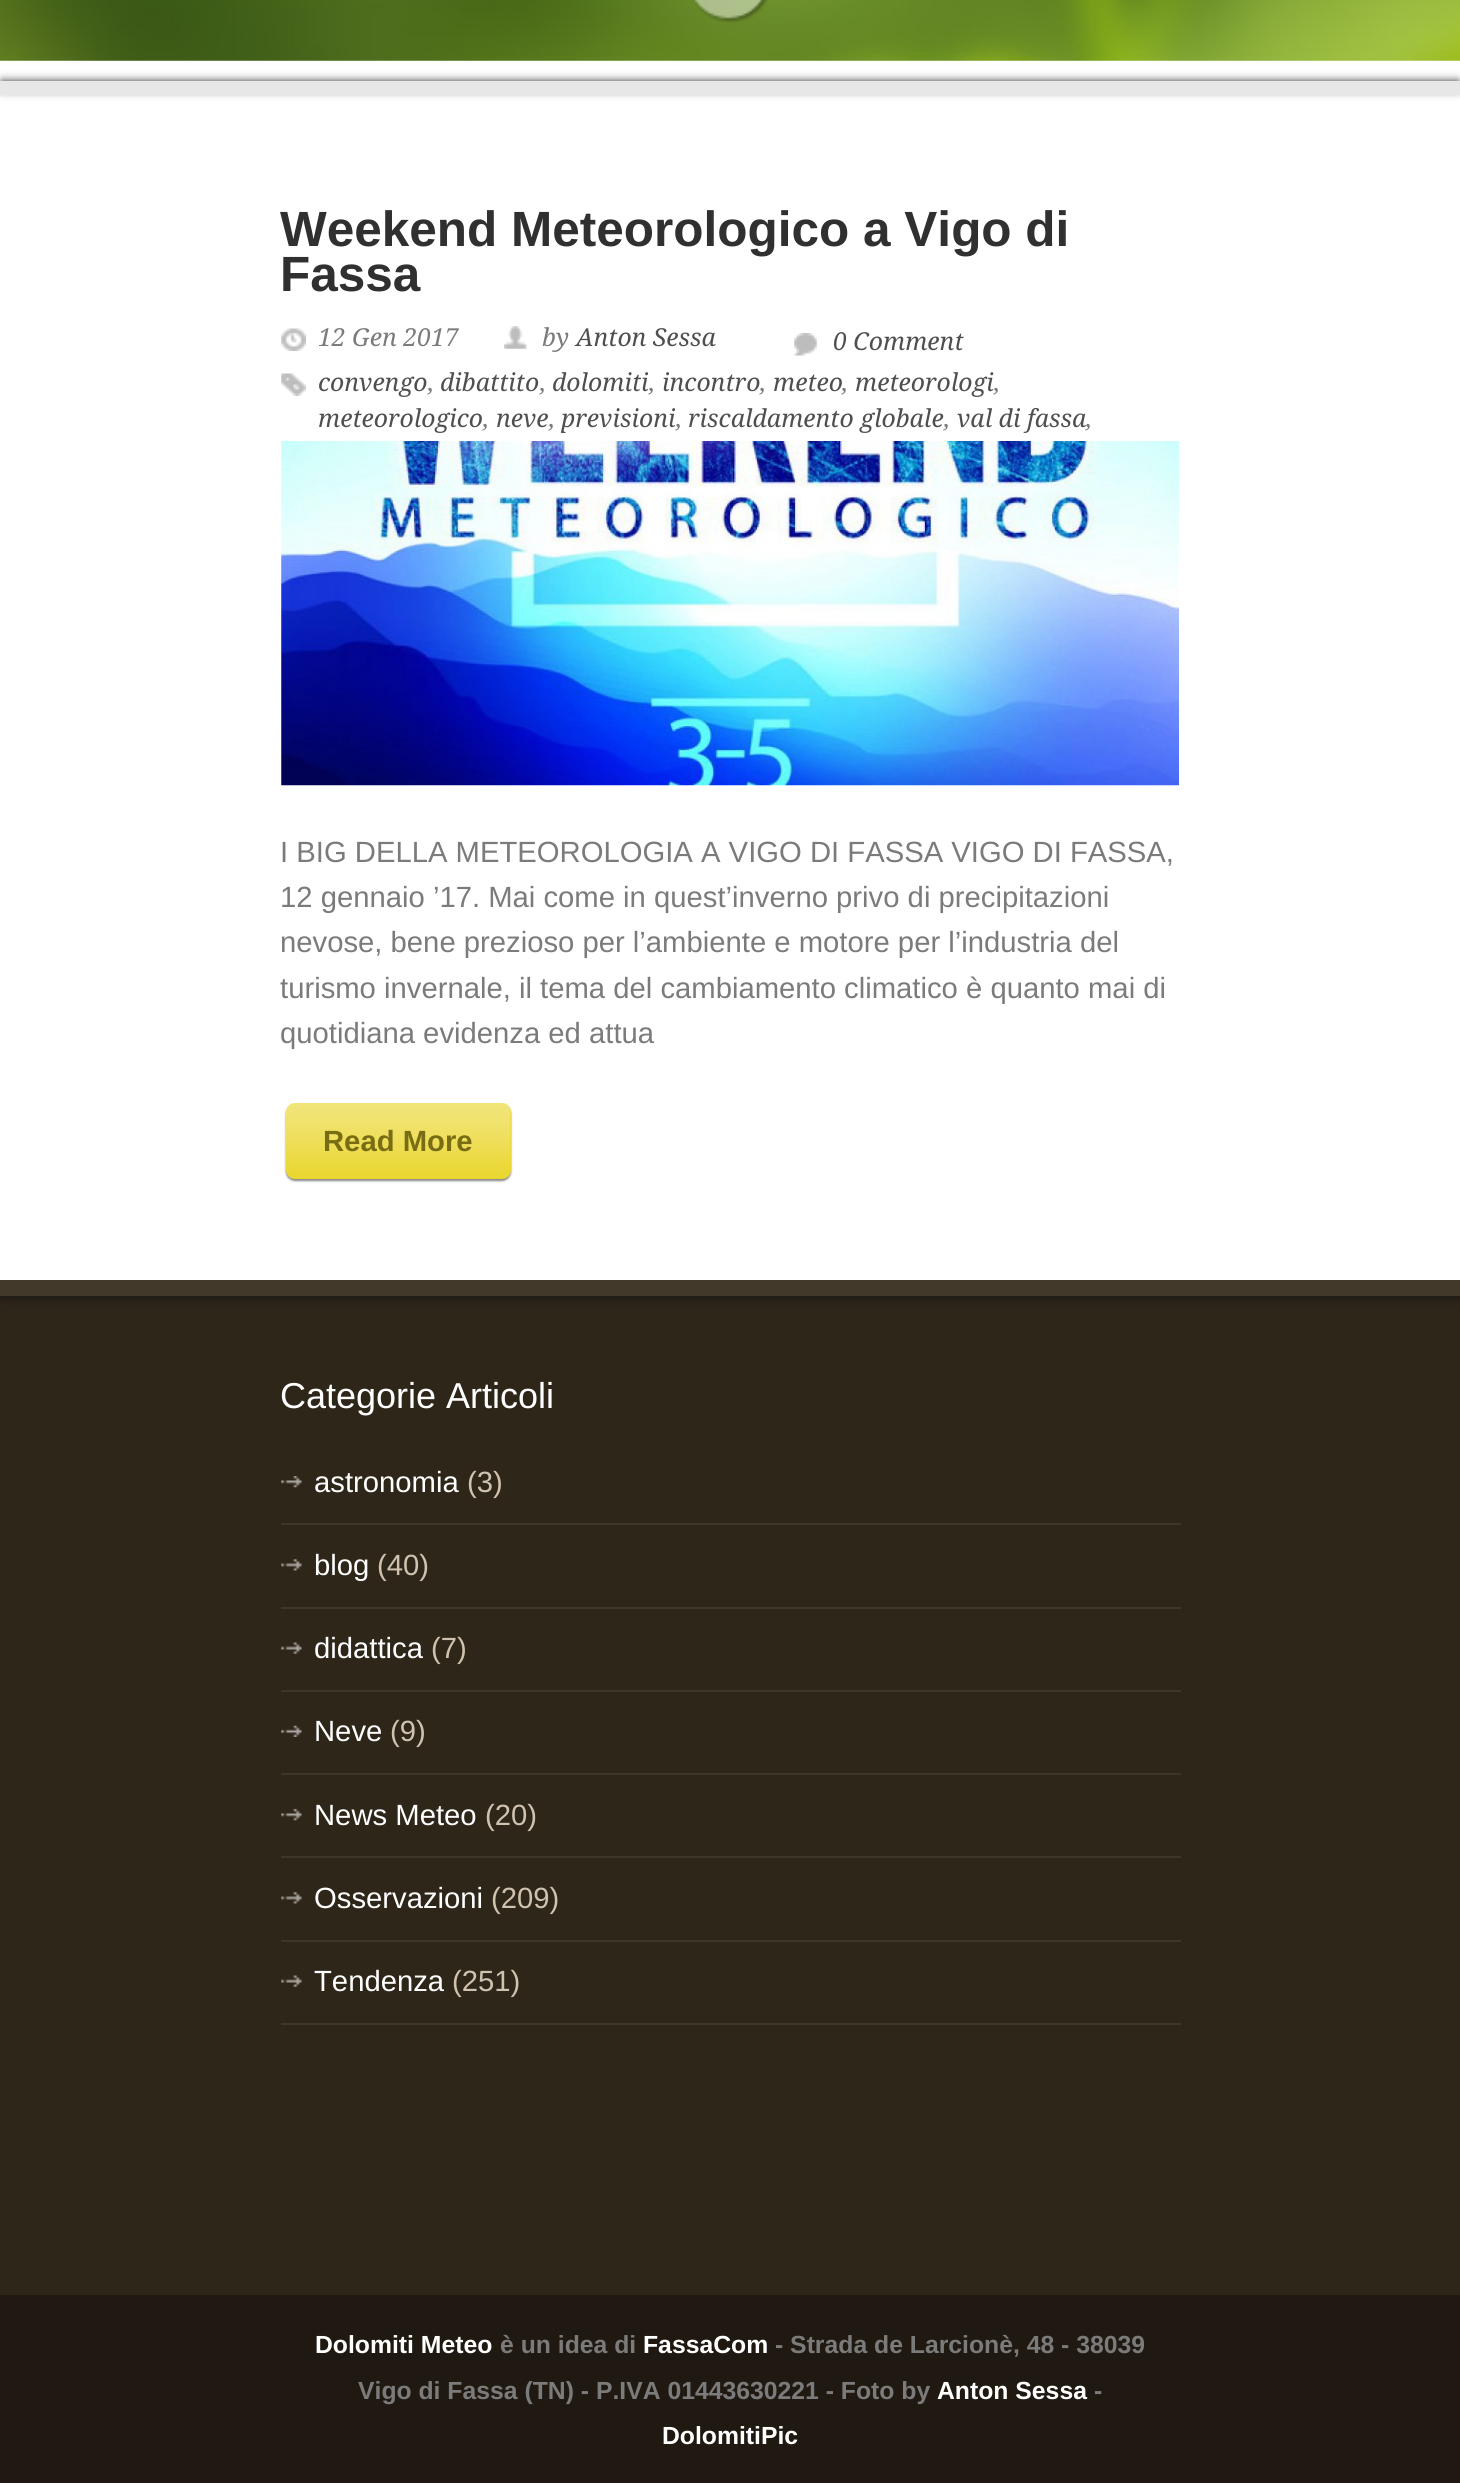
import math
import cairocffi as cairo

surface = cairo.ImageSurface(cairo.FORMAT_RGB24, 1460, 2483)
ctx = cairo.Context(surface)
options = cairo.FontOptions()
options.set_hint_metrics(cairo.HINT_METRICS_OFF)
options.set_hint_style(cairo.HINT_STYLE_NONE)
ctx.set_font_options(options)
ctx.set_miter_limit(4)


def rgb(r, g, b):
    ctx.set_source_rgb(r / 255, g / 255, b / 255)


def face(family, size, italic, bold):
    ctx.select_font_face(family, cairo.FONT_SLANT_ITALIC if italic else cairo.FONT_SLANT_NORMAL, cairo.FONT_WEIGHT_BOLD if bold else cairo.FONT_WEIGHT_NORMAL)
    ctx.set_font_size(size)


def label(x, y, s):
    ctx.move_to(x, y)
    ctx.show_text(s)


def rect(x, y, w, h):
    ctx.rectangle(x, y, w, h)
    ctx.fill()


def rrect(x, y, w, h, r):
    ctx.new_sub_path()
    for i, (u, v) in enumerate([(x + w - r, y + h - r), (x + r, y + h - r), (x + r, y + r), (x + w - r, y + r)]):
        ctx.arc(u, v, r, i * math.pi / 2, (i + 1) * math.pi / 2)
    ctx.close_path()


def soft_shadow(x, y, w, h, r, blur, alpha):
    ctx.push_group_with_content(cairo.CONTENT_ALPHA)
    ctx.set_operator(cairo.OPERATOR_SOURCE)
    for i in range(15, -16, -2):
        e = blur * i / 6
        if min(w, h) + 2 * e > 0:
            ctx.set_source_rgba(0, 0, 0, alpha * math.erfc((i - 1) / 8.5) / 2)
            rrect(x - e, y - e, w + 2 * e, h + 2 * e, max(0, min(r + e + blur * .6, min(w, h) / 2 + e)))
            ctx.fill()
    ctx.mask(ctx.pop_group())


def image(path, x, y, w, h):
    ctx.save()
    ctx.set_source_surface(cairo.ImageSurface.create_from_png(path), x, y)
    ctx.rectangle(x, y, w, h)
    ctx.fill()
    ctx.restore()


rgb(255, 255, 255)
ctx.paint()
image('image0.png', 0, 0, 1460, 61)
image('image1.png', 693, 0, 75, 23)
rgb(51, 51, 51)
soft_shadow(2, 81, 1456, 9, 0, 4.5, 1)
rgb(231, 231, 231)
rect(0, 81, 1460, 14)
face('Liberation Sans', 49.5, 0, 1)
rgb(48, 48, 48)
label(280, 246, 'Weekend Meteorologico a Vigo di')
label(280, 291, 'Fassa')
image('image2.png', 281, 328, 25, 23)
face('Droid Serif', 24.75, 1, 0)
rgb(123, 123, 123)
label(318, 346, '12 Gen 2017')
image('image3.png', 504, 326, 23, 23)
label(542, 346, 'by')
rgb(79, 79, 79)
label(576, 346, 'Anton Sessa')
image('image4.png', 794, 333, 23, 23)
label(833, 350, '0 Comment')
image('image5.png', 281, 373, 25, 23)
label(318, 391, 'convengo')
rgb(123, 123, 123)
label(428, 391, ',')
rgb(79, 79, 79)
label(440, 391, 'dibattito')
rgb(123, 123, 123)
label(540, 391, ',')
rgb(79, 79, 79)
label(552, 391, 'dolomiti')
rgb(123, 123, 123)
label(649, 391, ',')
rgb(79, 79, 79)
label(662, 391, 'incontro')
rgb(123, 123, 123)
label(760, 391, ',')
rgb(79, 79, 79)
label(773, 391, 'meteo')
rgb(123, 123, 123)
label(842, 391, ',')
rgb(79, 79, 79)
label(855, 391, 'meteorologi')
rgb(123, 123, 123)
label(994, 391, ',')
rgb(79, 79, 79)
label(318, 427, 'meteorologico')
rgb(123, 123, 123)
label(483, 427, ',')
rgb(79, 79, 79)
label(496, 427, 'neve')
rgb(123, 123, 123)
label(549, 427, ',')
rgb(79, 79, 79)
label(561, 427, 'previsioni')
rgb(123, 123, 123)
label(676, 427, ',')
rgb(79, 79, 79)
label(688, 427, 'riscaldamento globale')
rgb(123, 123, 123)
label(944, 427, ',')
rgb(79, 79, 79)
label(957, 427, 'val di fassa')
rgb(123, 123, 123)
label(1086, 427, ',')
image('image6.png', 281, 441, 898, 345)
face('Liberation Sans', 29.25, 0, 0)
label(280, 862, 'I BIG DELLA METEOROLOGIA A VIGO DI FASSA VIGO DI FASSA,')
label(280, 907, '12 gennaio ’17. Mai come in quest’inverno privo di precipitazioni')
label(280, 952, 'nevose, bene prezioso per l’ambiente e motore per l’industria del')
label(280, 998, 'turismo invernale, il tema del cambiamento climatico è quanto mai di')
label(280, 1043, 'quotidiana evidenza ed attua')
rgb(136, 136, 136)
soft_shadow(286, 1105, 225, 76, 9, 1, 1)
rgb(233, 212, 36)
rrect(286, 1103, 225, 76, 9)
ctx.fill()
image('image7.png', 286, 1103, 225, 76)
face('Liberation Sans', 29.25, 0, 1)
rgb(120, 109, 20)
label(323, 1151, 'Read More')
rgb(47, 38, 26)
rect(0, 1296, 1460, 999)
ctx.save()
ctx.rectangle(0, 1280, 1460, 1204)
ctx.clip()
rgb(17, 17, 17)
soft_shadow(0, 1280, 1460, 16, 0, 7, 1)
ctx.restore()
rgb(67, 57, 43)
rect(0, 1280, 1460, 16)
face('Liberation Sans', 36, 0, 0)
rgb(255, 255, 255)
label(280, 1408, 'Categorie Articoli')
image('image8.png', 281, 1476, 21, 12)
rgb(63, 54, 42)
rect(281, 1523, 900, 2)
face('Liberation Sans', 29.25, 0, 0)
rgb(255, 255, 255)
label(314, 1492, 'astronomia')
rgb(207, 194, 174)
label(467, 1492, '(3)')
image('image9.png', 281, 1559, 21, 12)
rgb(63, 54, 42)
rect(281, 1607, 900, 2)
rgb(255, 255, 255)
label(314, 1575, 'blog')
rgb(207, 194, 174)
label(377, 1575, '(40)')
image('image10.png', 281, 1642, 21, 12)
rgb(63, 54, 42)
rect(281, 1690, 900, 2)
rgb(255, 255, 255)
label(314, 1658, 'didattica')
rgb(207, 194, 174)
label(431, 1658, '(7)')
image('image11.png', 281, 1725, 21, 12)
rgb(63, 54, 42)
rect(281, 1773, 900, 2)
rgb(255, 255, 255)
label(314, 1741, 'Neve')
rgb(207, 194, 174)
label(390, 1741, '(9)')
image('image8.png', 281, 1809, 21, 12)
rgb(63, 54, 42)
rect(281, 1856, 900, 2)
rgb(255, 255, 255)
label(314, 1825, 'News Meteo')
rgb(207, 194, 174)
label(485, 1825, '(20)')
image('image9.png', 281, 1892, 21, 12)
rgb(63, 54, 42)
rect(281, 1940, 900, 2)
rgb(255, 255, 255)
label(314, 1908, 'Osservazioni')
rgb(207, 194, 174)
label(491, 1908, '(209)')
image('image10.png', 281, 1975, 21, 12)
rgb(63, 54, 42)
rect(281, 2023, 900, 2)
rgb(255, 255, 255)
label(314, 1991, 'Tendenza')
rgb(207, 194, 174)
label(452, 1991, '(251)')
rgb(31, 25, 17)
rect(0, 2295, 1460, 188)
face('Liberation Sans', 24.75, 0, 1)
rgb(255, 255, 255)
label(315, 2353, 'Dolomiti Meteo')
rgb(123, 123, 123)
label(500, 2353, 'è un idea di')
rgb(255, 255, 255)
label(643, 2353, 'FassaCom')
rgb(123, 123, 123)
label(775, 2353, '- Strada de Larcionè, 48 - 38039')
label(358, 2399, 'Vigo di Fassa (TN) - P.IVA 01443630221 - Foto by')
rgb(255, 255, 255)
label(937, 2399, 'Anton Sessa')
rgb(123, 123, 123)
label(1094, 2399, '-')
rgb(255, 255, 255)
label(662, 2444, 'DolomitiPic')
surface.write_to_png('render.png')
